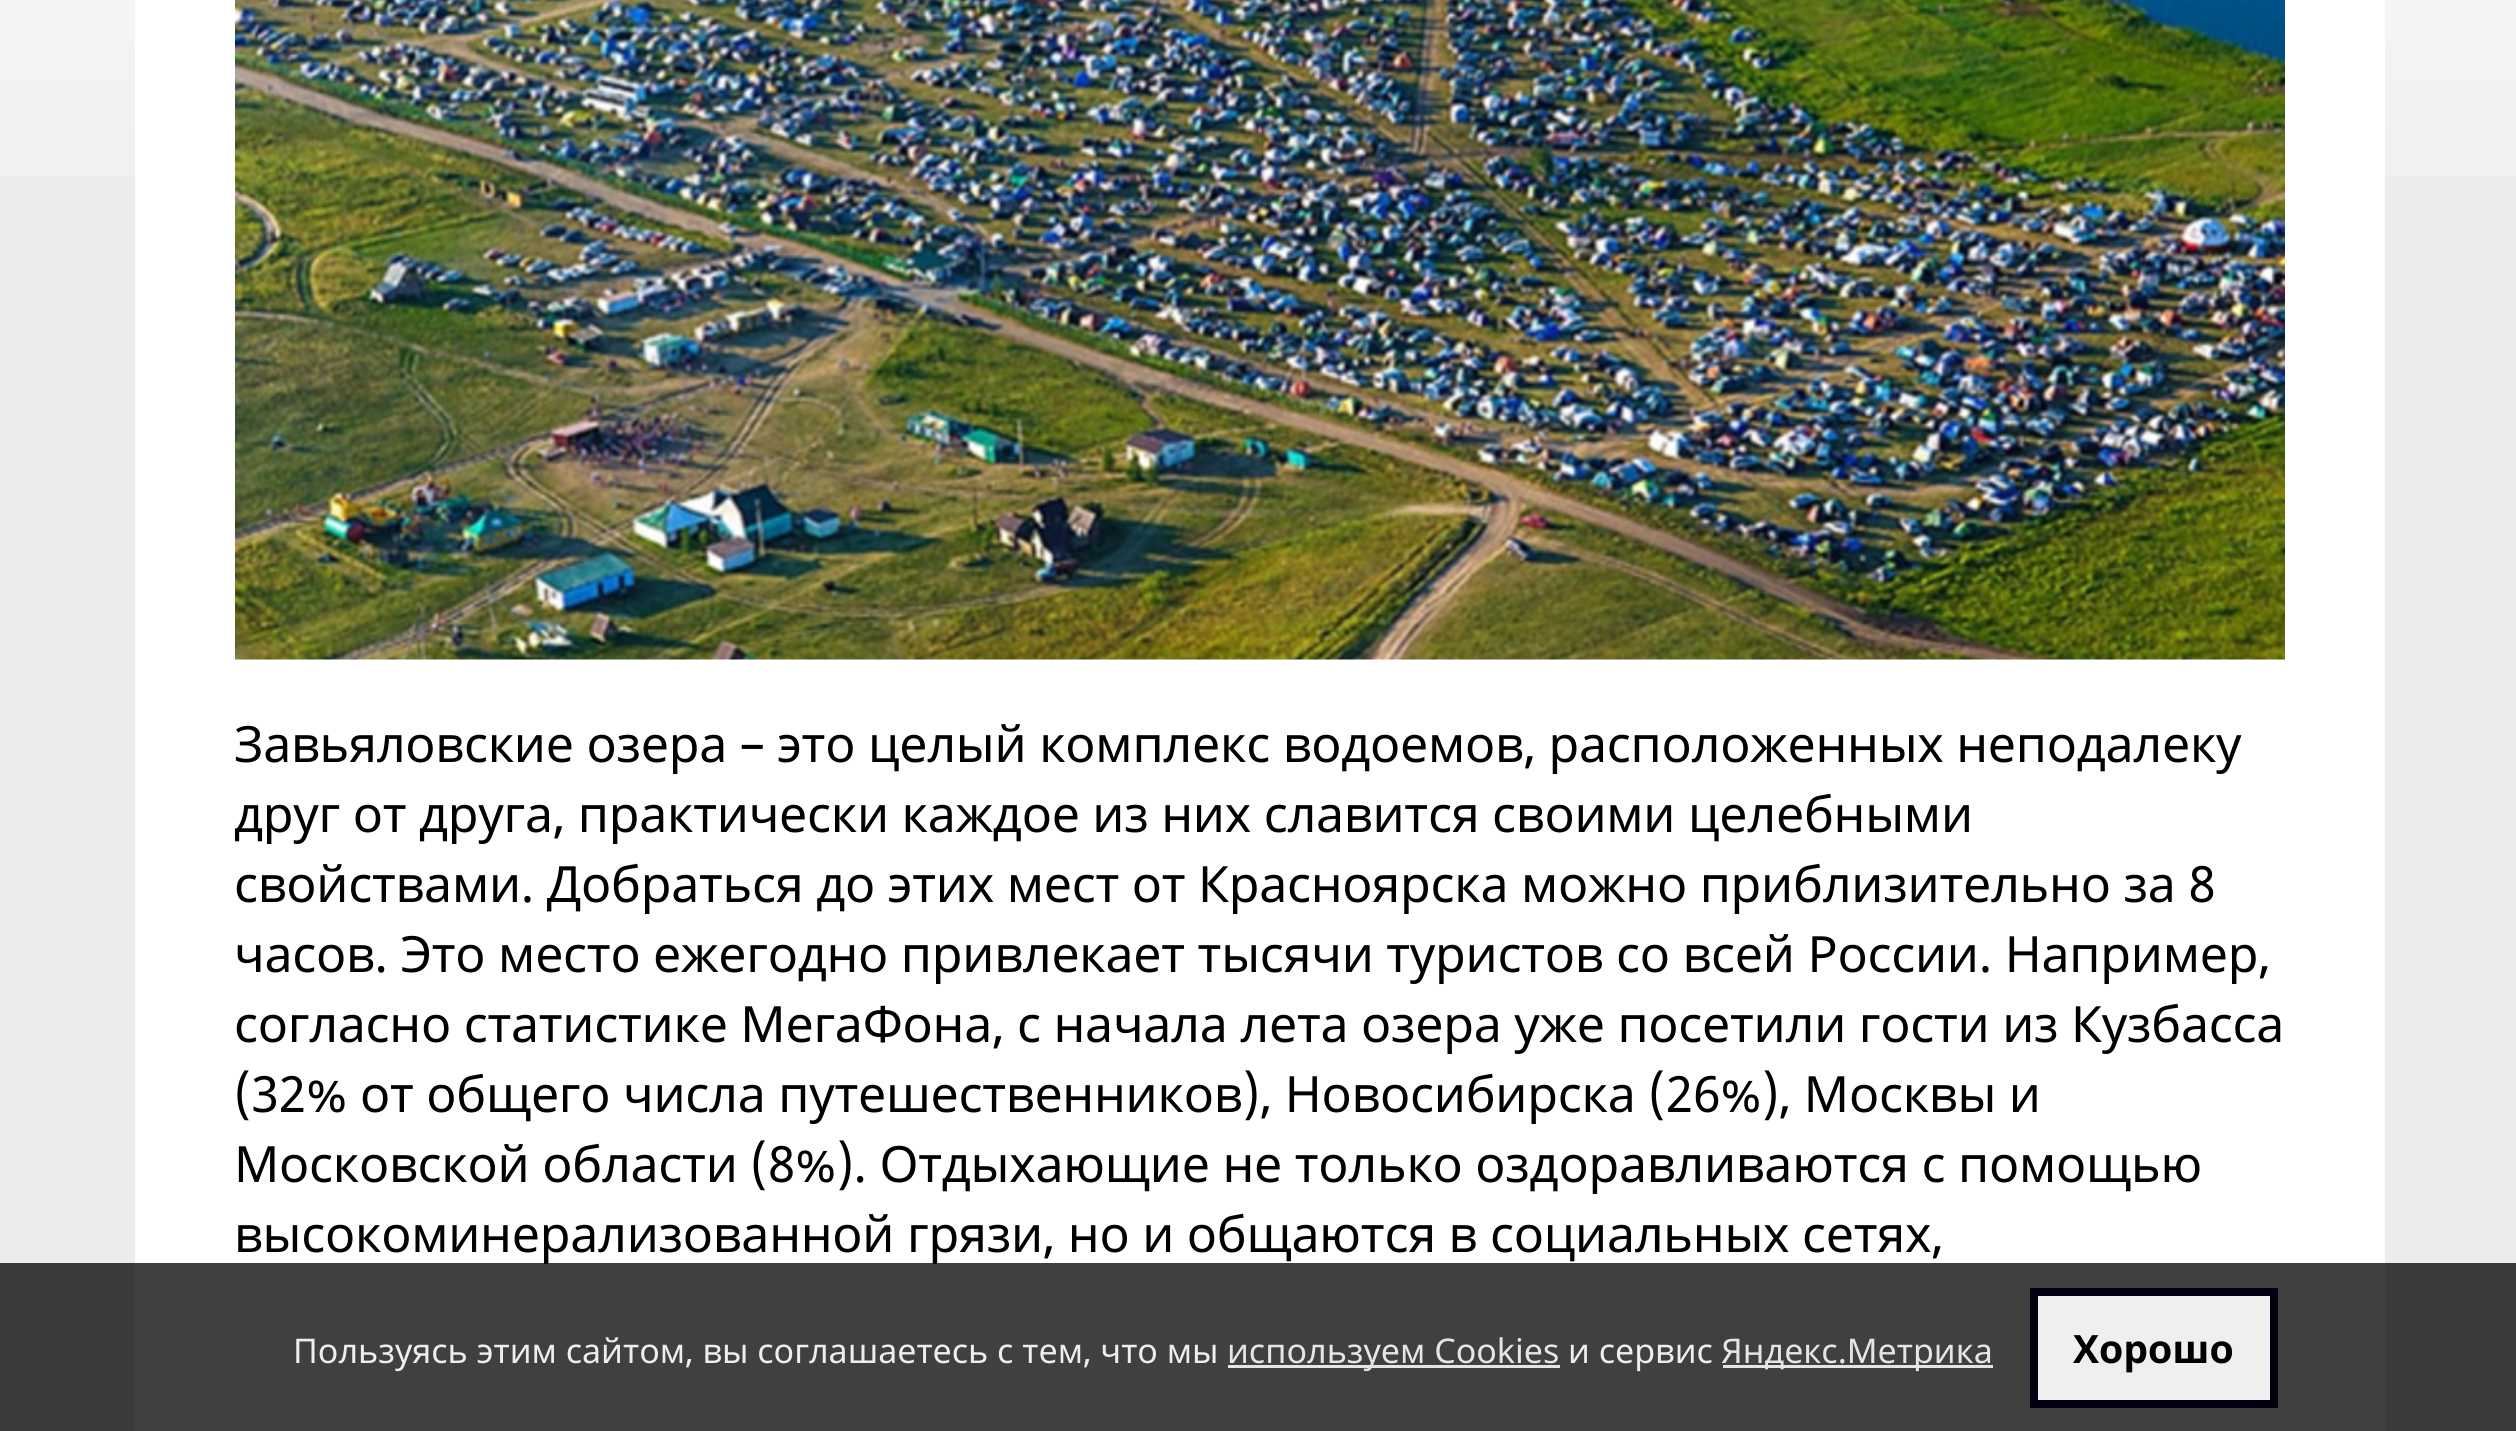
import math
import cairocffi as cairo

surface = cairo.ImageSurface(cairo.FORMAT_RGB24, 2516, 1431)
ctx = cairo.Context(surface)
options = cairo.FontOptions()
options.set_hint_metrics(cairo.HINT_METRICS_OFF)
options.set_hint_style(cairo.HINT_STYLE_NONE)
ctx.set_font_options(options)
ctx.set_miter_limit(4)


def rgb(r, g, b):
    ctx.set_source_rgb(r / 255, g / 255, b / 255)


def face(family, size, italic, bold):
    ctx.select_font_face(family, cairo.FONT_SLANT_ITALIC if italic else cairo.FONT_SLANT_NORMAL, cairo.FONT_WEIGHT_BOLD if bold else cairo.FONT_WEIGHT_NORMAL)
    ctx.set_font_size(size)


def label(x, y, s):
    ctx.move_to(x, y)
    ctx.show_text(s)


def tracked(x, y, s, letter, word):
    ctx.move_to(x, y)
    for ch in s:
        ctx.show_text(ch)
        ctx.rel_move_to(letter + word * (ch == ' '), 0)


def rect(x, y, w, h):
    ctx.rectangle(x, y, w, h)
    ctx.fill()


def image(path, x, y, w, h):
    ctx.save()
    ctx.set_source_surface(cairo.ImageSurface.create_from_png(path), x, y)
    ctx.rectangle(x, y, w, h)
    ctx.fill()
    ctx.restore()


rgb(235, 236, 238)
ctx.paint()
image('image0.png', 0, 0, 2516, 176)
rgb(255, 255, 255)
rect(135, 0, 2250, 1431)
image('image1.png', 235, 0, 2050, 660)
face('Noto Sans', 50, 0, 0)
rgb(0, 0, 0)
tracked(234, 762, 'Завьяловские озера – это целый комплекс водоемов, расположенных неподалеку', -0.25, 0)
tracked(234, 832, 'друг от друга, практически каждое из них славится своими целебными', -0.25, 0)
tracked(234, 902, 'свойствами. Добраться до этих мест от Красноярска можно приблизительно за 8', -0.25, 0)
tracked(234, 972, 'часов. Это место ежегодно привлекает тысячи туристов со всей России. Например,', -0.25, 0)
tracked(234, 1042, 'согласно статистике МегаФона, с начала лета озера уже посетили гости из Кузбасса', -0.25, 0)
tracked(234, 1112, '(32% от общего числа путешественников), Новосибирска (26%), Москвы и', -0.25, 0)
tracked(234, 1182, 'Московской области (8%). Отдыхающие не только оздоравливаются с помощью', -0.25, 0)
tracked(234, 1252, 'высокоминерализованной грязи, но и общаются в социальных сетях,', -0.25, 0)
ctx.set_source_rgba(0, 0, 0, 0.75)
rect(0, 1263, 2516, 168)
face('Noto Sans', 34, 0, 0)
rgb(238, 238, 238)
label(293, 1363, 'Пользуясь этим сайтом, вы соглашаетесь с тем, что мы')
rgb(229, 229, 229)
rect(1228, 1365, 332, 3)
label(1227, 1363, 'используем Cookies')
rgb(238, 238, 238)
label(1568, 1363, 'и сервис')
rgb(229, 229, 229)
rect(1723, 1365, 270, 3)
label(1721, 1363, 'Яндекс.Метрика')
rgb(239, 239, 239)
ctx.rectangle(2034, 1292, 240, 112)
ctx.fill_preserve()
rgb(0, 0, 17)
ctx.set_line_width(8)
ctx.stroke()
face('Noto Sans', 39, 0, 1)
rgb(0, 0, 0)
label(2073, 1363, 'Хорошо')
surface.write_to_png('render.png')
